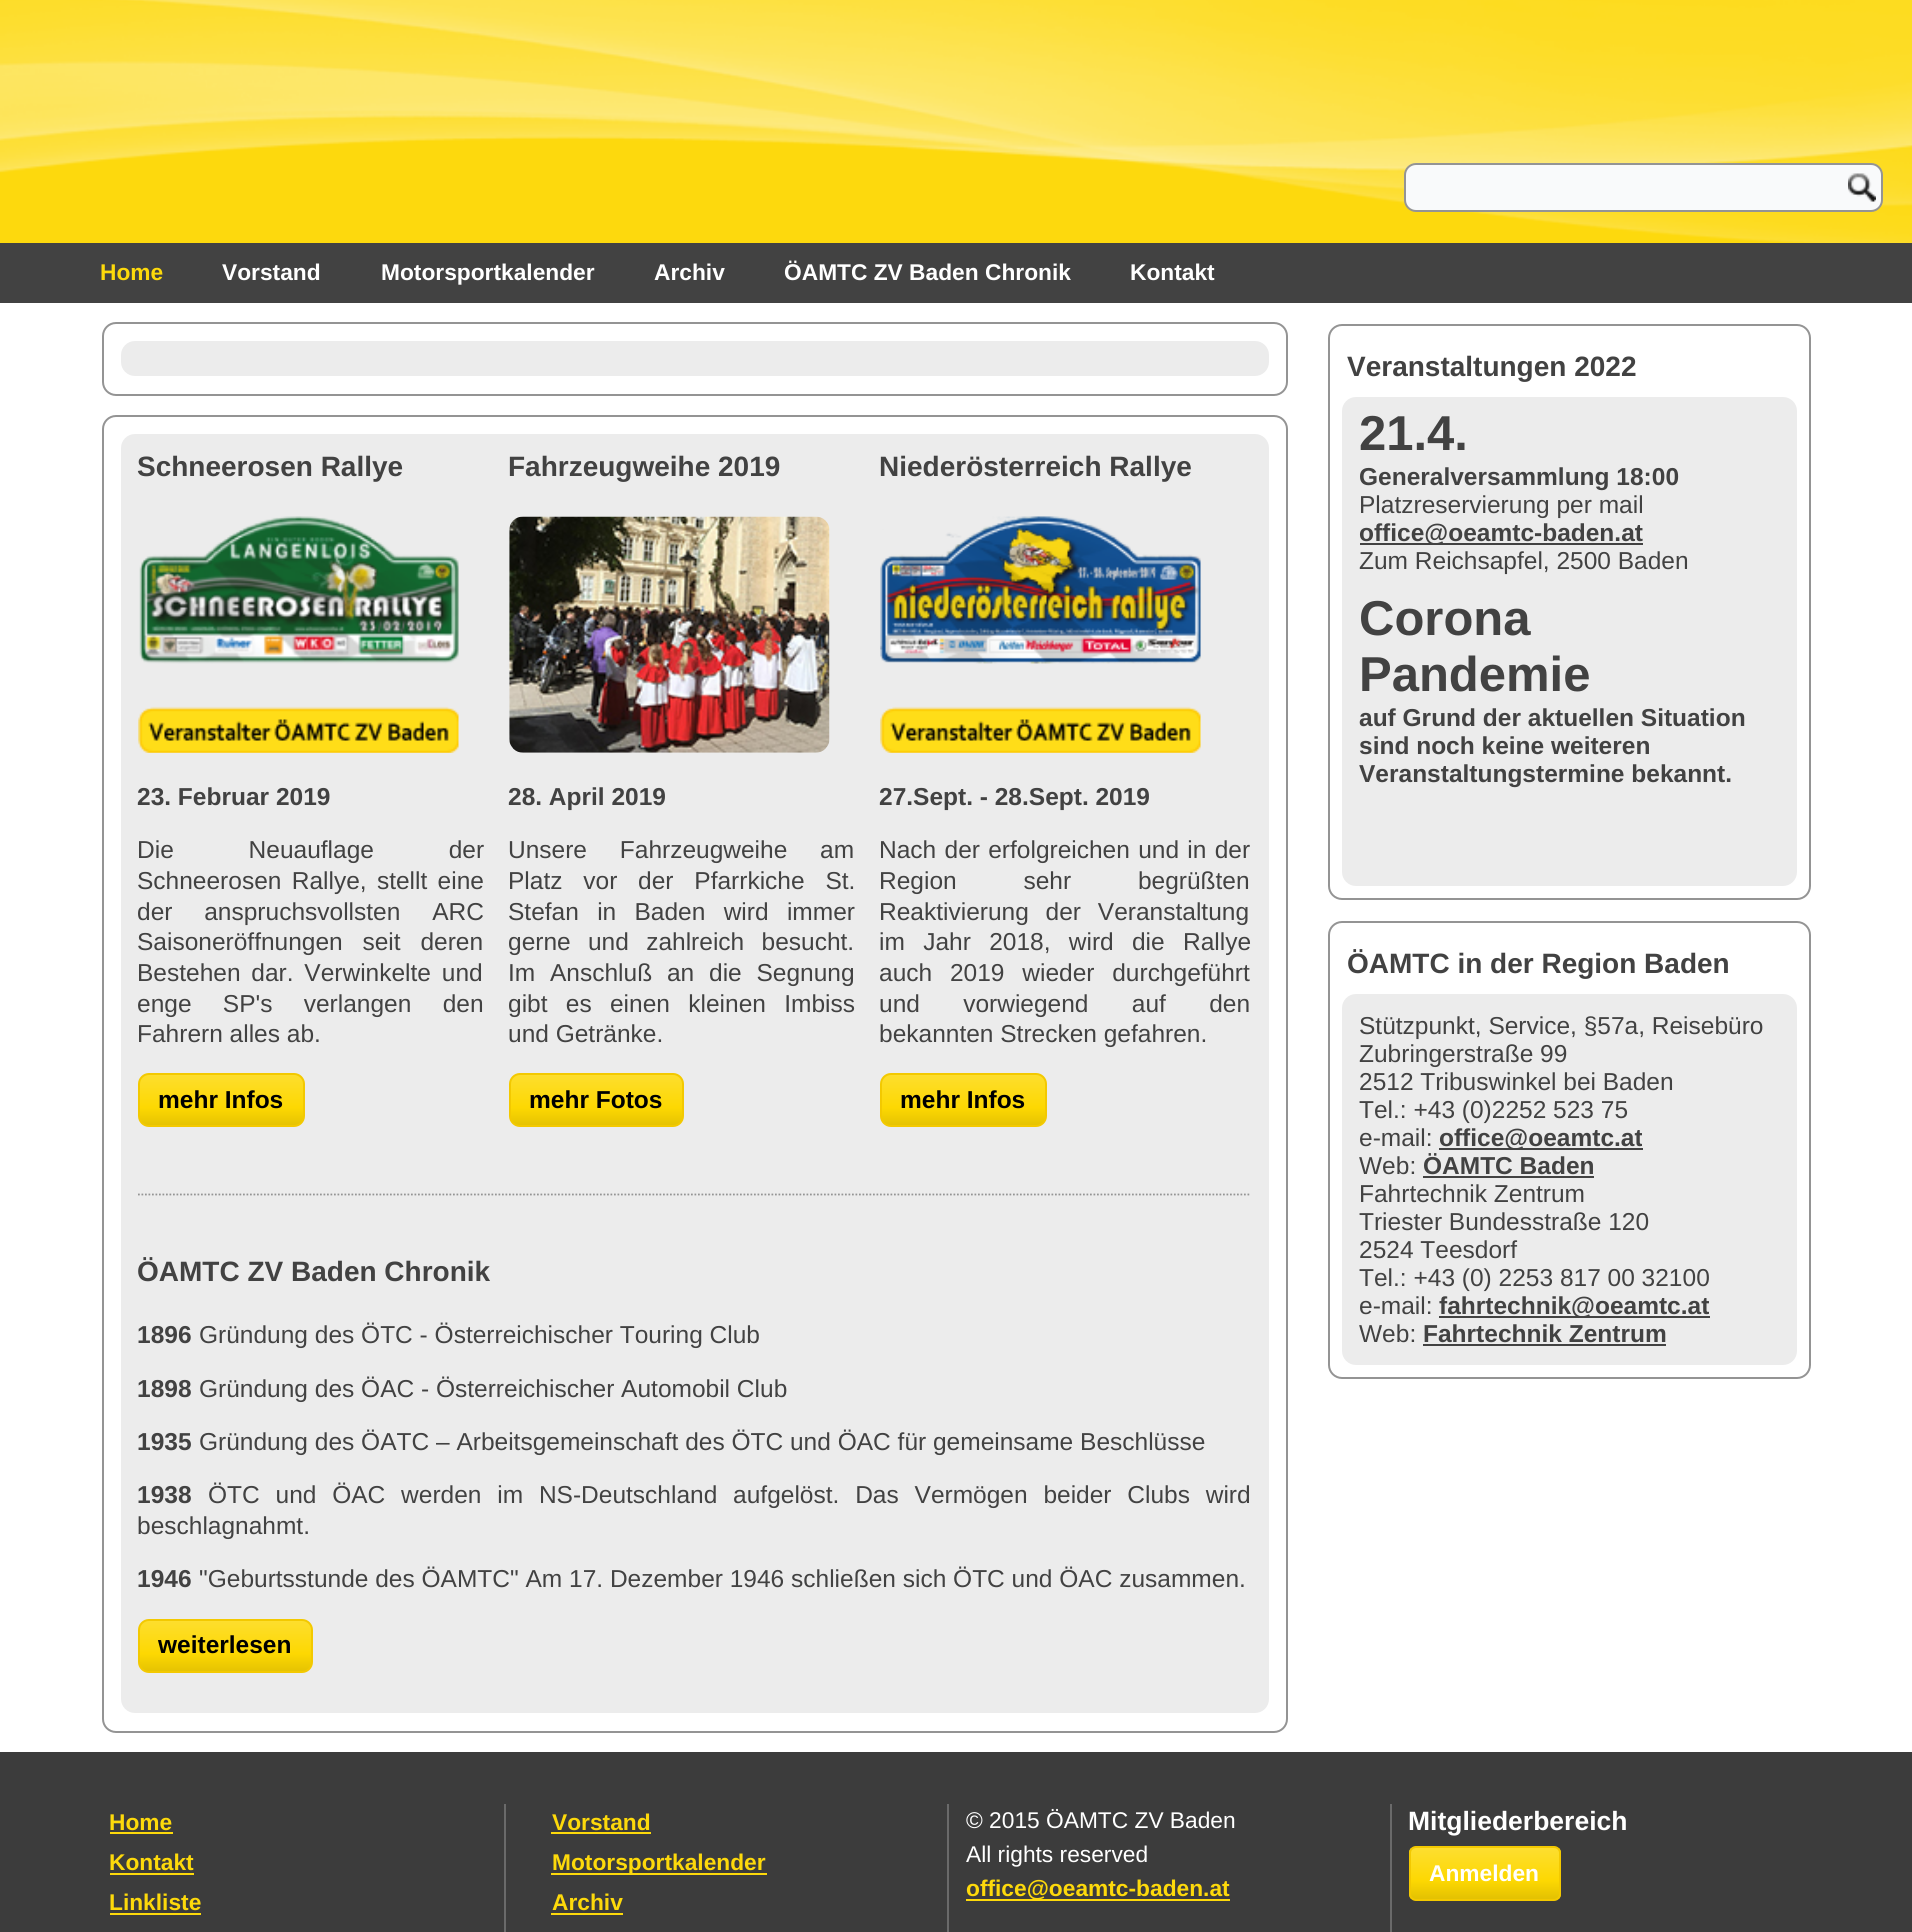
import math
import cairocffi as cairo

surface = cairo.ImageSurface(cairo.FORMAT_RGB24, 1912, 1932)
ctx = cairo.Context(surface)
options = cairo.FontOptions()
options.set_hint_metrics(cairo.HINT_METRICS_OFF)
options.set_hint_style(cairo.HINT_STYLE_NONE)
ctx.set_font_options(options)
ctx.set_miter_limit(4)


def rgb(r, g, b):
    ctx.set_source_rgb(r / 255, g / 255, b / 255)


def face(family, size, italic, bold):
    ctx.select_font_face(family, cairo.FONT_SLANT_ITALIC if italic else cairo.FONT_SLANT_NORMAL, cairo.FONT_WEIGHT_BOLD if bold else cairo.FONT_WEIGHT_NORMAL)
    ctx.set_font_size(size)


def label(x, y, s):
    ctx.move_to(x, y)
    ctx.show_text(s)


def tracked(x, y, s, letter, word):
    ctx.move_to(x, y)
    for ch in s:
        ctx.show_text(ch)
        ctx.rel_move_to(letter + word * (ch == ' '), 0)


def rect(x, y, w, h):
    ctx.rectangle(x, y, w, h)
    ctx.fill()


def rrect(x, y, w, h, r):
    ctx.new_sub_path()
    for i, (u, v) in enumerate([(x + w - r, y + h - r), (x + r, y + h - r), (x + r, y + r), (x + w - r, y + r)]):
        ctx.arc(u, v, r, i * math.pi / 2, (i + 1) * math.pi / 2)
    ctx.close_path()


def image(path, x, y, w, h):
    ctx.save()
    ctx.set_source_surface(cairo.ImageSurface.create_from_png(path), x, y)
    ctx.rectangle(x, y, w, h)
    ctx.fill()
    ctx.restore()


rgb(255, 255, 255)
ctx.paint()
image('image0.png', 0, 0, 1912, 243)
rgb(249, 250, 251)
rrect(1405, 164, 477, 47, 11)
ctx.fill_preserve()
rgb(148, 148, 148)
ctx.stroke()
image('image1.png', 1848, 173, 28, 29)
rgb(66, 66, 66)
rect(0, 243, 1912, 60)
face('Liberation Sans', 22.75, 0, 1)
rgb(253, 217, 11)
label(100, 280, 'Home')
rgb(255, 255, 255)
label(222, 280, 'Vorstand')
label(381, 280, 'Motorsportkalender')
label(654, 280, 'Archiv')
label(784, 280, 'ÖAMTC ZV Baden Chronik')
label(1130, 280, 'Kontakt')
rrect(103, 323, 1184, 72, 13)
rgb(148, 148, 148)
ctx.stroke()
rgb(236, 236, 236)
rrect(121, 341, 1148, 35, 14)
ctx.fill()
rrect(103, 416, 1184, 1316, 13)
rgb(148, 148, 148)
ctx.stroke()
rgb(236, 236, 236)
rrect(121, 434, 1148, 1279, 14)
ctx.fill()
face('Liberation Sans', 28, 0, 1)
rgb(66, 66, 66)
label(137, 476, 'Schneerosen Rallye')
image('image2.png', 138, 516, 321, 237)
face('Liberation Sans', 24.5, 0, 1)
label(137, 805, '23. Februar 2019')
face('Liberation Sans', 24.5, 0, 0)
tracked(137, 858, 'Die Neuauflage der', 0, 68)
tracked(137, 889, 'Schneerosen Rallye, stellt eine', 0, 3.5)
tracked(137, 920, 'der anspruchsvollsten ARC', 0, 25)
tracked(137, 950, 'Saisoneröffnungen seit deren', 0, 13)
tracked(137, 981, 'Bestehen dar. Verwinkelte und', 0, 4)
tracked(137, 1012, 'enge SP\'s verlangen den', 0, 24.5)
label(137, 1042, 'Fahrern alles ab.')
gradient = cairo.LinearGradient(221, 1073, 221, 1127)
gradient.add_color_stop_rgba(0, 0.992, 0.871, 0.188, 1)
gradient.add_color_stop_rgba(0.64, 0.992, 0.847, 0.008, 1)
gradient.add_color_stop_rgba(1, 0.89, 0.757, 0.008, 1)
ctx.set_source(gradient)
rrect(139, 1074, 165, 52, 10)
ctx.fill_preserve()
rgb(243, 201, 0)
ctx.stroke()
face('Liberation Sans', 24.5, 0, 1)
rgb(0, 0, 0)
label(158, 1108, 'mehr Infos')
face('Liberation Sans', 28, 0, 1)
rgb(66, 66, 66)
label(508, 476, 'Fahrzeugweihe 2019')
image('image3.png', 509, 516, 321, 237)
face('Liberation Sans', 24.5, 0, 1)
label(508, 805, '28. April 2019')
face('Liberation Sans', 24.5, 0, 0)
tracked(508, 858, 'Unsere Fahrzeugweihe am', 0, 26)
tracked(508, 889, 'Platz vor der Pfarrkiche St.', 0, 14)
tracked(508, 920, 'Stefan in Baden wird immer', 0, 11.5)
tracked(508, 950, 'gerne und zahlreich besucht.', 0, 10.5)
tracked(508, 981, 'Im Anschluß an die Segnung', 0, 8)
tracked(508, 1012, 'gibt es einen kleinen Imbiss', 0, 11.5)
label(508, 1042, 'und Getränke.')
gradient = cairo.LinearGradient(597, 1073, 597, 1127)
gradient.add_color_stop_rgba(0, 0.992, 0.871, 0.188, 1)
gradient.add_color_stop_rgba(0.64, 0.992, 0.847, 0.008, 1)
gradient.add_color_stop_rgba(1, 0.89, 0.757, 0.008, 1)
ctx.set_source(gradient)
rrect(510, 1074, 173, 52, 10)
ctx.fill_preserve()
rgb(243, 201, 0)
ctx.stroke()
face('Liberation Sans', 24.5, 0, 1)
rgb(0, 0, 0)
label(529, 1108, 'mehr Fotos')
face('Liberation Sans', 28, 0, 1)
rgb(66, 66, 66)
label(879, 476, 'Niederösterreich Rallye')
image('image4.png', 880, 516, 321, 237)
face('Liberation Sans', 24.5, 0, 1)
label(879, 805, '27.Sept. - 28.Sept. 2019')
face('Liberation Sans', 24.5, 0, 0)
tracked(879, 858, 'Nach der erfolgreichen und in der', 0, 1.5)
tracked(879, 889, 'Region sehr begrüßten', 0, 60)
tracked(879, 920, 'Reaktivierung der Veranstaltung', 0, 10)
tracked(879, 950, 'im Jahr 2018, wird die Rallye', 0, 11.5)
tracked(879, 981, 'auch 2019 wieder durchgeführt', 0, 11)
tracked(879, 1012, 'und vorwiegend auf den', 0, 36.5)
label(879, 1042, 'bekannten Strecken gefahren.')
gradient = cairo.LinearGradient(963, 1073, 963, 1127)
gradient.add_color_stop_rgba(0, 0.992, 0.871, 0.188, 1)
gradient.add_color_stop_rgba(0.64, 0.992, 0.847, 0.008, 1)
gradient.add_color_stop_rgba(1, 0.89, 0.757, 0.008, 1)
ctx.set_source(gradient)
rrect(881, 1074, 165, 52, 10)
ctx.fill_preserve()
rgb(243, 201, 0)
ctx.stroke()
face('Liberation Sans', 24.5, 0, 1)
rgb(0, 0, 0)
label(900, 1108, 'mehr Infos')
ctx.new_path()
ctx.move_to(138, 1194.5)
ctx.line_to(1251, 1194.5)
rgb(148, 148, 148)
ctx.set_line_width(1.8)
ctx.set_dash([1.75, 1.75])
ctx.stroke()
face('Liberation Sans', 28, 0, 1)
rgb(66, 66, 66)
label(137, 1281, 'ÖAMTC ZV Baden Chronik')
face('Liberation Sans', 24.5, 0, 1)
label(137, 1343, '1896')
face('Liberation Sans', 24.5, 0, 0)
label(199, 1343, 'Gründung des ÖTC - Österreichischer Touring Club')
face('Liberation Sans', 24.5, 0, 1)
label(137, 1397, '1898')
face('Liberation Sans', 24.5, 0, 0)
label(199, 1397, 'Gründung des ÖAC - Österreichischer Automobil Club')
face('Liberation Sans', 24.5, 0, 1)
label(137, 1450, '1935')
face('Liberation Sans', 24.5, 0, 0)
label(199, 1450, 'Gründung des ÖATC – Arbeitsgemeinschaft des ÖTC und ÖAC für gemeinsame Beschlüsse')
face('Liberation Sans', 24.5, 0, 1)
label(137, 1503, '1938')
face('Liberation Sans', 24.5, 0, 0)
tracked(208, 1503, 'ÖTC und ÖAC werden im NS-Deutschland aufgelöst. Das Vermögen beider Clubs wird', 0, 9)
label(137, 1534, 'beschlagnahmt.')
face('Liberation Sans', 24.5, 0, 1)
label(137, 1587, '1946')
face('Liberation Sans', 24.5, 0, 0)
label(199, 1587, '"Geburtsstunde des ÖAMTC" Am 17. Dezember 1946 schließen sich ÖTC und ÖAC zusammen.')
gradient = cairo.LinearGradient(226, 1619, 226, 1673)
gradient.add_color_stop_rgba(0, 0.992, 0.871, 0.188, 1)
gradient.add_color_stop_rgba(0.64, 0.992, 0.847, 0.008, 1)
gradient.add_color_stop_rgba(1, 0.89, 0.757, 0.008, 1)
ctx.set_source(gradient)
rrect(139, 1620, 173, 52, 10)
ctx.fill_preserve()
rgb(243, 201, 0)
ctx.set_line_width(2)
ctx.set_dash([])
ctx.stroke()
face('Liberation Sans', 24.5, 0, 1)
rgb(0, 0, 0)
label(158, 1653, 'weiterlesen')
rrect(1329, 325, 481, 574, 13)
rgb(148, 148, 148)
ctx.stroke()
face('Liberation Sans', 28, 0, 1)
rgb(66, 66, 66)
label(1347, 376, 'Veranstaltungen 2022')
rgb(236, 236, 236)
rrect(1342, 397, 455, 489, 14)
ctx.fill()
face('Liberation Sans', 49, 0, 1)
rgb(66, 66, 66)
label(1359, 450, '21.4.')
face('Liberation Sans', 24.5, 0, 1)
label(1359, 485, 'Generalversammlung 18:00')
face('Liberation Sans', 24.5, 0, 0)
label(1359, 513, 'Platzreservierung per mail')
rect(1360, 543, 283, 2)
face('Liberation Sans', 24.5, 0, 1)
label(1359, 541, 'office@oeamtc-baden.at')
face('Liberation Sans', 24.5, 0, 0)
label(1359, 569, 'Zum Reichsapfel, 2500 Baden')
face('Liberation Sans', 49, 0, 1)
label(1359, 635, 'Corona')
label(1359, 691, 'Pandemie')
face('Liberation Sans', 24.5, 0, 1)
label(1359, 726, 'auf Grund der aktuellen Situation')
label(1359, 754, 'sind noch keine weiteren')
label(1359, 782, 'Veranstaltungstermine bekannt.')
rrect(1329, 922, 481, 456, 13)
rgb(148, 148, 148)
ctx.stroke()
face('Liberation Sans', 28, 0, 1)
rgb(66, 66, 66)
label(1347, 973, 'ÖAMTC in der Region Baden')
rgb(236, 236, 236)
rrect(1342, 994, 455, 371, 14)
ctx.fill()
face('Liberation Sans', 24.5, 0, 0)
rgb(66, 66, 66)
label(1359, 1034, 'Stützpunkt, Service, §57a, Reisebüro')
label(1359, 1062, 'Zubringerstraße 99')
label(1359, 1090, '2512 Tribuswinkel bei Baden')
label(1359, 1118, 'Tel.: +43 (0)2252 523 75')
label(1359, 1146, 'e-mail:')
rect(1439, 1148, 204, 2)
face('Liberation Sans', 24.5, 0, 1)
label(1439, 1146, 'office@oeamtc.at')
face('Liberation Sans', 24.5, 0, 0)
label(1359, 1174, 'Web:')
face('Liberation Sans', 24.5, 0, 1)
label(1423, 1174, 'ÖAMTC Baden')
rect(1423, 1176, 171, 2)
face('Liberation Sans', 24.5, 0, 0)
label(1359, 1202, 'Fahrtechnik Zentrum')
label(1359, 1230, 'Triester Bundesstraße 120')
label(1359, 1258, '2524 Teesdorf')
label(1359, 1286, 'Tel.: +43 (0) 2253 817 00 32100')
label(1359, 1314, 'e-mail:')
rect(1439, 1316, 271, 2)
face('Liberation Sans', 24.5, 0, 1)
label(1439, 1314, 'fahrtechnik@oeamtc.at')
face('Liberation Sans', 24.5, 0, 0)
label(1359, 1342, 'Web:')
face('Liberation Sans', 24.5, 0, 1)
label(1423, 1342, 'Fahrtechnik Zentrum')
rect(1423, 1344, 243, 2)
rgb(60, 60, 60)
rect(0, 1752, 1912, 180)
rgb(106, 106, 106)
rect(504, 1804, 2, 128)
face('Liberation Sans', 22.75, 0, 1)
rgb(253, 217, 11)
label(109, 1830, 'Home')
rect(110, 1832, 63, 2)
label(109, 1870, 'Kontakt')
rect(110, 1873, 84, 2)
label(109, 1910, 'Linkliste')
rect(110, 1913, 91, 2)
rgb(106, 106, 106)
rect(947, 1804, 2, 128)
rgb(253, 217, 11)
label(552, 1830, 'Vorstand')
rect(551, 1832, 100, 2)
rect(551, 1873, 216, 2)
label(552, 1870, 'Motorsportkalender')
label(552, 1910, 'Archiv')
rect(551, 1913, 72, 2)
rgb(106, 106, 106)
rect(1390, 1804, 2, 128)
face('Liberation Sans', 22.75, 0, 0)
rgb(255, 255, 255)
label(966, 1828, '© 2015 ÖAMTC ZV Baden')
label(966, 1862, 'All rights reserved')
rgb(253, 217, 11)
rect(966, 1899, 264, 2)
face('Liberation Sans', 22.75, 0, 1)
label(966, 1896, 'office@oeamtc-baden.at')
face('Liberation Sans', 26.5, 0, 1)
rgb(255, 255, 255)
label(1408, 1830, 'Mitgliederbereich')
ctx.save()
rrect(1409, 1846, 152, 55, 7)
ctx.clip()
gradient = cairo.LinearGradient(1485, 1848, 1485, 1899)
gradient.add_color_stop_rgba(0, 0.992, 0.871, 0.188, 1)
gradient.add_color_stop_rgba(0.64, 0.992, 0.847, 0.008, 1)
gradient.add_color_stop_rgba(1, 0.89, 0.757, 0.008, 1)
ctx.set_source(gradient)
rect(1409, 1848, 152, 51)
ctx.restore()
rrect(1410, 1847, 150, 53, 6)
rgb(243, 201, 0)
ctx.stroke()
face('Liberation Sans', 22.75, 0, 1)
rgb(255, 255, 255)
label(1429, 1881, 'Anmelden')
surface.write_to_png('render.png')
